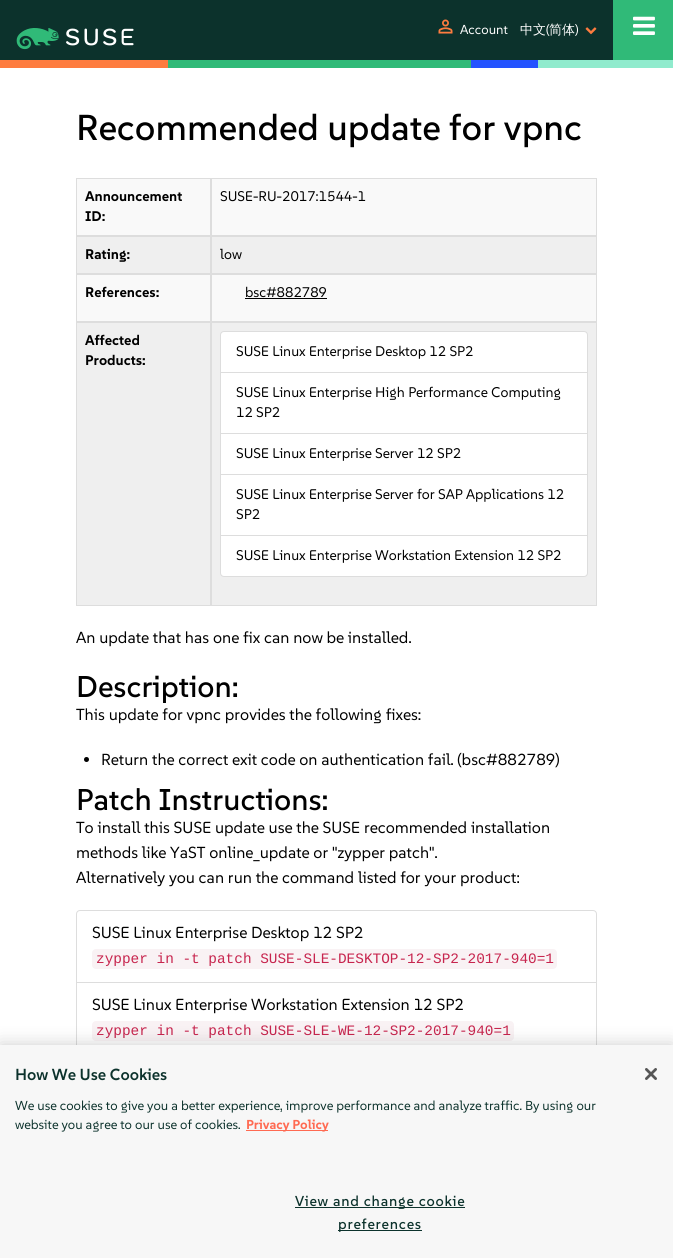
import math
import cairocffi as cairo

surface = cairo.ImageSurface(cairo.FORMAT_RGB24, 673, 1258)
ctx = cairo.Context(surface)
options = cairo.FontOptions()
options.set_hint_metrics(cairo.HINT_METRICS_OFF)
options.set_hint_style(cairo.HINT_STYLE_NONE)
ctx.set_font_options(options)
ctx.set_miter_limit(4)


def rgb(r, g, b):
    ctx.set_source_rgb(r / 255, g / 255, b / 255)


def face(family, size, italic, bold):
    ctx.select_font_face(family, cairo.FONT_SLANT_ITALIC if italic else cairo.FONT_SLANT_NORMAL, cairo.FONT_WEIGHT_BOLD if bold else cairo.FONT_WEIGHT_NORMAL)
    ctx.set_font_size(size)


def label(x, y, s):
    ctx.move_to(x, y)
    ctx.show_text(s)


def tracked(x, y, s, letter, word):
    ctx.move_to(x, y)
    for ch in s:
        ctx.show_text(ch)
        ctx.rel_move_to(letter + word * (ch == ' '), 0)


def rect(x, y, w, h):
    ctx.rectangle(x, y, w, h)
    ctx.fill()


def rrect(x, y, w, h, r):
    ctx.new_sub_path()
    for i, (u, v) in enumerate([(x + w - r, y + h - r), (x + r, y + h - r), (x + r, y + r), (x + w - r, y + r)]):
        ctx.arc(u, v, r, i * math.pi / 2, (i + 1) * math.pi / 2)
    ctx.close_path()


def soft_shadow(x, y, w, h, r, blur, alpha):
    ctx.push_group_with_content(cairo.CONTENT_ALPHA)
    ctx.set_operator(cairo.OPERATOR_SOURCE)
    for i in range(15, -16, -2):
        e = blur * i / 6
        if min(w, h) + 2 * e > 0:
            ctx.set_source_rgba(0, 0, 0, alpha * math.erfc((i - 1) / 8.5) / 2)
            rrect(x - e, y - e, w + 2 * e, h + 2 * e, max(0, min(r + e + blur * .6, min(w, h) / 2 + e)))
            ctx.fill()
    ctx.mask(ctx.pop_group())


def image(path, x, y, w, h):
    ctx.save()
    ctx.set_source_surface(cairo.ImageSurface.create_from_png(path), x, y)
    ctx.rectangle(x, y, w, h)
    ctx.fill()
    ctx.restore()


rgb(255, 255, 255)
ctx.paint()
rgb(12, 50, 44)
rect(0, 0, 613, 60)
rgb(48, 186, 120)
rect(613, 0, 60, 60)
image('image0.png', 633, 16, 22, 19)
rgb(254, 124, 63)
rect(0, 60, 168, 8)
rgb(48, 186, 120)
rect(168, 60, 303, 8)
rgb(36, 83, 255)
rect(471, 60, 67, 8)
rgb(144, 235, 205)
rect(538, 60, 135, 8)
image('image1.png', 16, 28, 118, 22)
image('image2.png', 438, 19, 15, 15)
face('SUSE', 13, 0, 0)
rgb(255, 255, 255)
label(460, 34, 'Account')
face('WenQuanYi Zen Hei Medium', 13, 0, 0)
label(520, 34, '中文')
face('SUSE', 13, 0, 0)
label(546, 34, '(')
face('WenQuanYi Zen Hei Medium', 13, 0, 0)
label(549, 34, '简体')
face('SUSE', 13, 0, 0)
label(575, 34, ')')
image('image3.png', 585, 27, 12, 8)
face('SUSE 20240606 Medium', 36, 0, 0)
rgb(0, 0, 0)
label(76, 140, 'Recommended update for vpnc')
rgb(249, 249, 249)
rect(77, 179, 519, 56)
ctx.rectangle(76.5, 178.5, 134, 57)
rgb(221, 221, 221)
ctx.set_line_width(1)
ctx.stroke()
face('SUSE 20240606', 14, 0, 1)
rgb(0, 0, 0)
label(85, 201, 'Announcement')
label(85, 221, 'ID:')
ctx.rectangle(211.5, 178.5, 385, 57)
rgb(221, 221, 221)
ctx.stroke()
face('SUSE', 14, 0, 0)
rgb(0, 0, 0)
label(220, 201, 'SUSE-RU-2017:1544-1')
rgb(239, 239, 239)
rect(77, 237, 519, 36)
ctx.rectangle(76.5, 236.5, 134, 37)
rgb(221, 221, 221)
ctx.stroke()
face('SUSE 20240606', 14, 0, 1)
rgb(0, 0, 0)
label(85, 259, 'Rating:')
ctx.rectangle(211.5, 236.5, 385, 37)
rgb(221, 221, 221)
ctx.stroke()
face('SUSE', 14, 0, 0)
rgb(0, 0, 0)
label(220, 259, 'low')
rgb(249, 249, 249)
rect(77, 275, 519, 46)
ctx.rectangle(76.5, 274.5, 134, 47)
rgb(221, 221, 221)
ctx.stroke()
face('SUSE 20240606', 14, 0, 1)
rgb(0, 0, 0)
label(85, 297, 'References:')
ctx.rectangle(211.5, 274.5, 385, 47)
rgb(221, 221, 221)
ctx.stroke()
face('SUSE', 14, 0, 0)
rgb(0, 0, 0)
label(245, 297, 'bsc#882789')
rect(245, 298, 82, 1)
rgb(239, 239, 239)
rect(77, 323, 519, 282)
ctx.rectangle(76.5, 322.5, 134, 283)
rgb(221, 221, 221)
ctx.stroke()
face('SUSE 20240606', 14, 0, 1)
rgb(0, 0, 0)
label(85, 345, 'Affected')
label(85, 365, 'Products:')
ctx.rectangle(211.5, 322.5, 385, 283)
rgb(221, 221, 221)
ctx.stroke()
rgb(255, 255, 255)
ctx.new_path()
ctx.move_to(224, 331.5)
ctx.line_to(584, 331.5)
ctx.curve_to(586, 331.5, 587.5, 333, 587.5, 335)
ctx.line_to(587.5, 372.5)
ctx.line_to(220.5, 372.5)
ctx.line_to(220.5, 335)
ctx.curve_to(220.5, 333, 222, 331.5, 224, 331.5)
ctx.close_path()
ctx.fill_preserve()
rgb(221, 221, 221)
ctx.stroke()
face('SUSE', 14, 0, 0)
rgb(0, 0, 0)
label(236, 356, 'SUSE Linux Enterprise Desktop 12 SP2')
rgb(255, 255, 255)
ctx.rectangle(220.5, 372.5, 367, 61)
ctx.fill_preserve()
rgb(221, 221, 221)
ctx.stroke()
rgb(0, 0, 0)
label(236, 397, 'SUSE Linux Enterprise High Performance Computing')
label(236, 417, '12 SP2')
rgb(255, 255, 255)
ctx.rectangle(220.5, 433.5, 367, 41)
ctx.fill_preserve()
rgb(221, 221, 221)
ctx.stroke()
rgb(0, 0, 0)
label(236, 458, 'SUSE Linux Enterprise Server 12 SP2')
rgb(255, 255, 255)
ctx.rectangle(220.5, 474.5, 367, 61)
ctx.fill_preserve()
rgb(221, 221, 221)
ctx.stroke()
rgb(0, 0, 0)
label(236, 499, 'SUSE Linux Enterprise Server for SAP Applications 12')
label(236, 519, 'SP2')
rgb(255, 255, 255)
ctx.new_path()
ctx.move_to(220.5, 535.5)
ctx.line_to(587.5, 535.5)
ctx.line_to(587.5, 573)
ctx.curve_to(587.5, 575, 586, 576.5, 584, 576.5)
ctx.line_to(224, 576.5)
ctx.curve_to(222, 576.5, 220.5, 575, 220.5, 573)
ctx.close_path()
ctx.fill_preserve()
rgb(221, 221, 221)
ctx.stroke()
rgb(0, 0, 0)
label(236, 560, 'SUSE Linux Enterprise Workstation Extension 12 SP2')
face('SUSE', 16, 0, 0)
label(76, 643, 'An update that has one fix can now be installed.')
face('SUSE 20240606 Medium', 30, 0, 0)
label(76, 697, 'Description:')
face('SUSE', 16, 0, 0)
label(76, 720, 'This update for vpnc provides the following fixes:')
ctx.new_path()
ctx.arc(86.5, 759.5, 2.5, 0, 2 * math.pi)
ctx.fill()
label(101, 765, 'Return the correct exit code on authentication fail. (bsc#882789)')
face('SUSE 20240606 Medium', 30, 0, 0)
label(76, 810, 'Patch Instructions:')
face('SUSE', 16, 0, 0)
label(76, 833, 'To install this SUSE update use the SUSE recommended installation')
label(76, 858, 'methods like YaST online_update or "zypper patch".')
label(76, 883, 'Alternatively you can run the command listed for your product:')
ctx.new_path()
ctx.move_to(80, 910.5)
ctx.line_to(593, 910.5)
ctx.curve_to(595, 910.5, 596.5, 912, 596.5, 914)
ctx.line_to(596.5, 982.5)
ctx.line_to(76.5, 982.5)
ctx.line_to(76.5, 914)
ctx.curve_to(76.5, 912, 78, 910.5, 80, 910.5)
ctx.close_path()
rgb(221, 221, 221)
ctx.stroke()
rgb(0, 0, 0)
label(92, 938, 'SUSE Linux Enterprise Desktop 12 SP2')
rgb(249, 242, 244)
rrect(92, 949, 465, 20, 4)
ctx.fill()
face('Liberation Mono', 14.4, 0, 0)
rgb(199, 37, 78)
label(96, 963, 'zypper in -t patch SUSE-SLE-DESKTOP-12-SP2-2017-940=1')
ctx.rectangle(76.5, 982.5, 520, 72)
rgb(221, 221, 221)
ctx.stroke()
face('SUSE', 16, 0, 0)
rgb(0, 0, 0)
label(92, 1010, 'SUSE Linux Enterprise Workstation Extension 12 SP2')
rgb(249, 242, 244)
rrect(92, 1021, 422, 20, 4)
ctx.fill()
face('Liberation Mono', 14.4, 0, 0)
rgb(199, 37, 78)
label(96, 1035, 'zypper in -t patch SUSE-SLE-WE-12-SP2-2017-940=1')
rgb(0, 0, 0)
soft_shadow(0, 1045, 673, 213, 0, 9, 0.2)
rgb(247, 247, 247)
rect(0, 1045, 673, 213)
face('SUSE 20240606 SemiBold', 16, 0, 0)
rgb(12, 50, 44)
label(15, 1080, 'How We Use Cookies')
face('SUSE', 13, 0, 0)
label(15, 1110, 'We use cookies to give you a better experience, improve performance and analyze traffic. By using our')
label(15, 1129, 'website you agree to our use of cookies.')
rgb(255, 106, 82)
rect(246, 1130, 82, 1)
face('SUSE 20240606', 13, 0, 1)
label(246, 1129, 'Privacy Policy')
rgb(12, 50, 44)
rect(295, 1207, 170, 1)
face('SUSE 20240606 Medium', 14.4, 0, 0)
tracked(295, 1206, 'View and change cookie', 0.75, 0)
rect(338, 1230, 84, 1)
tracked(338, 1229, 'preferences', 0.75, 0)
image('image4.png', 645, 1068, 12, 12)
surface.write_to_png('render.png')
